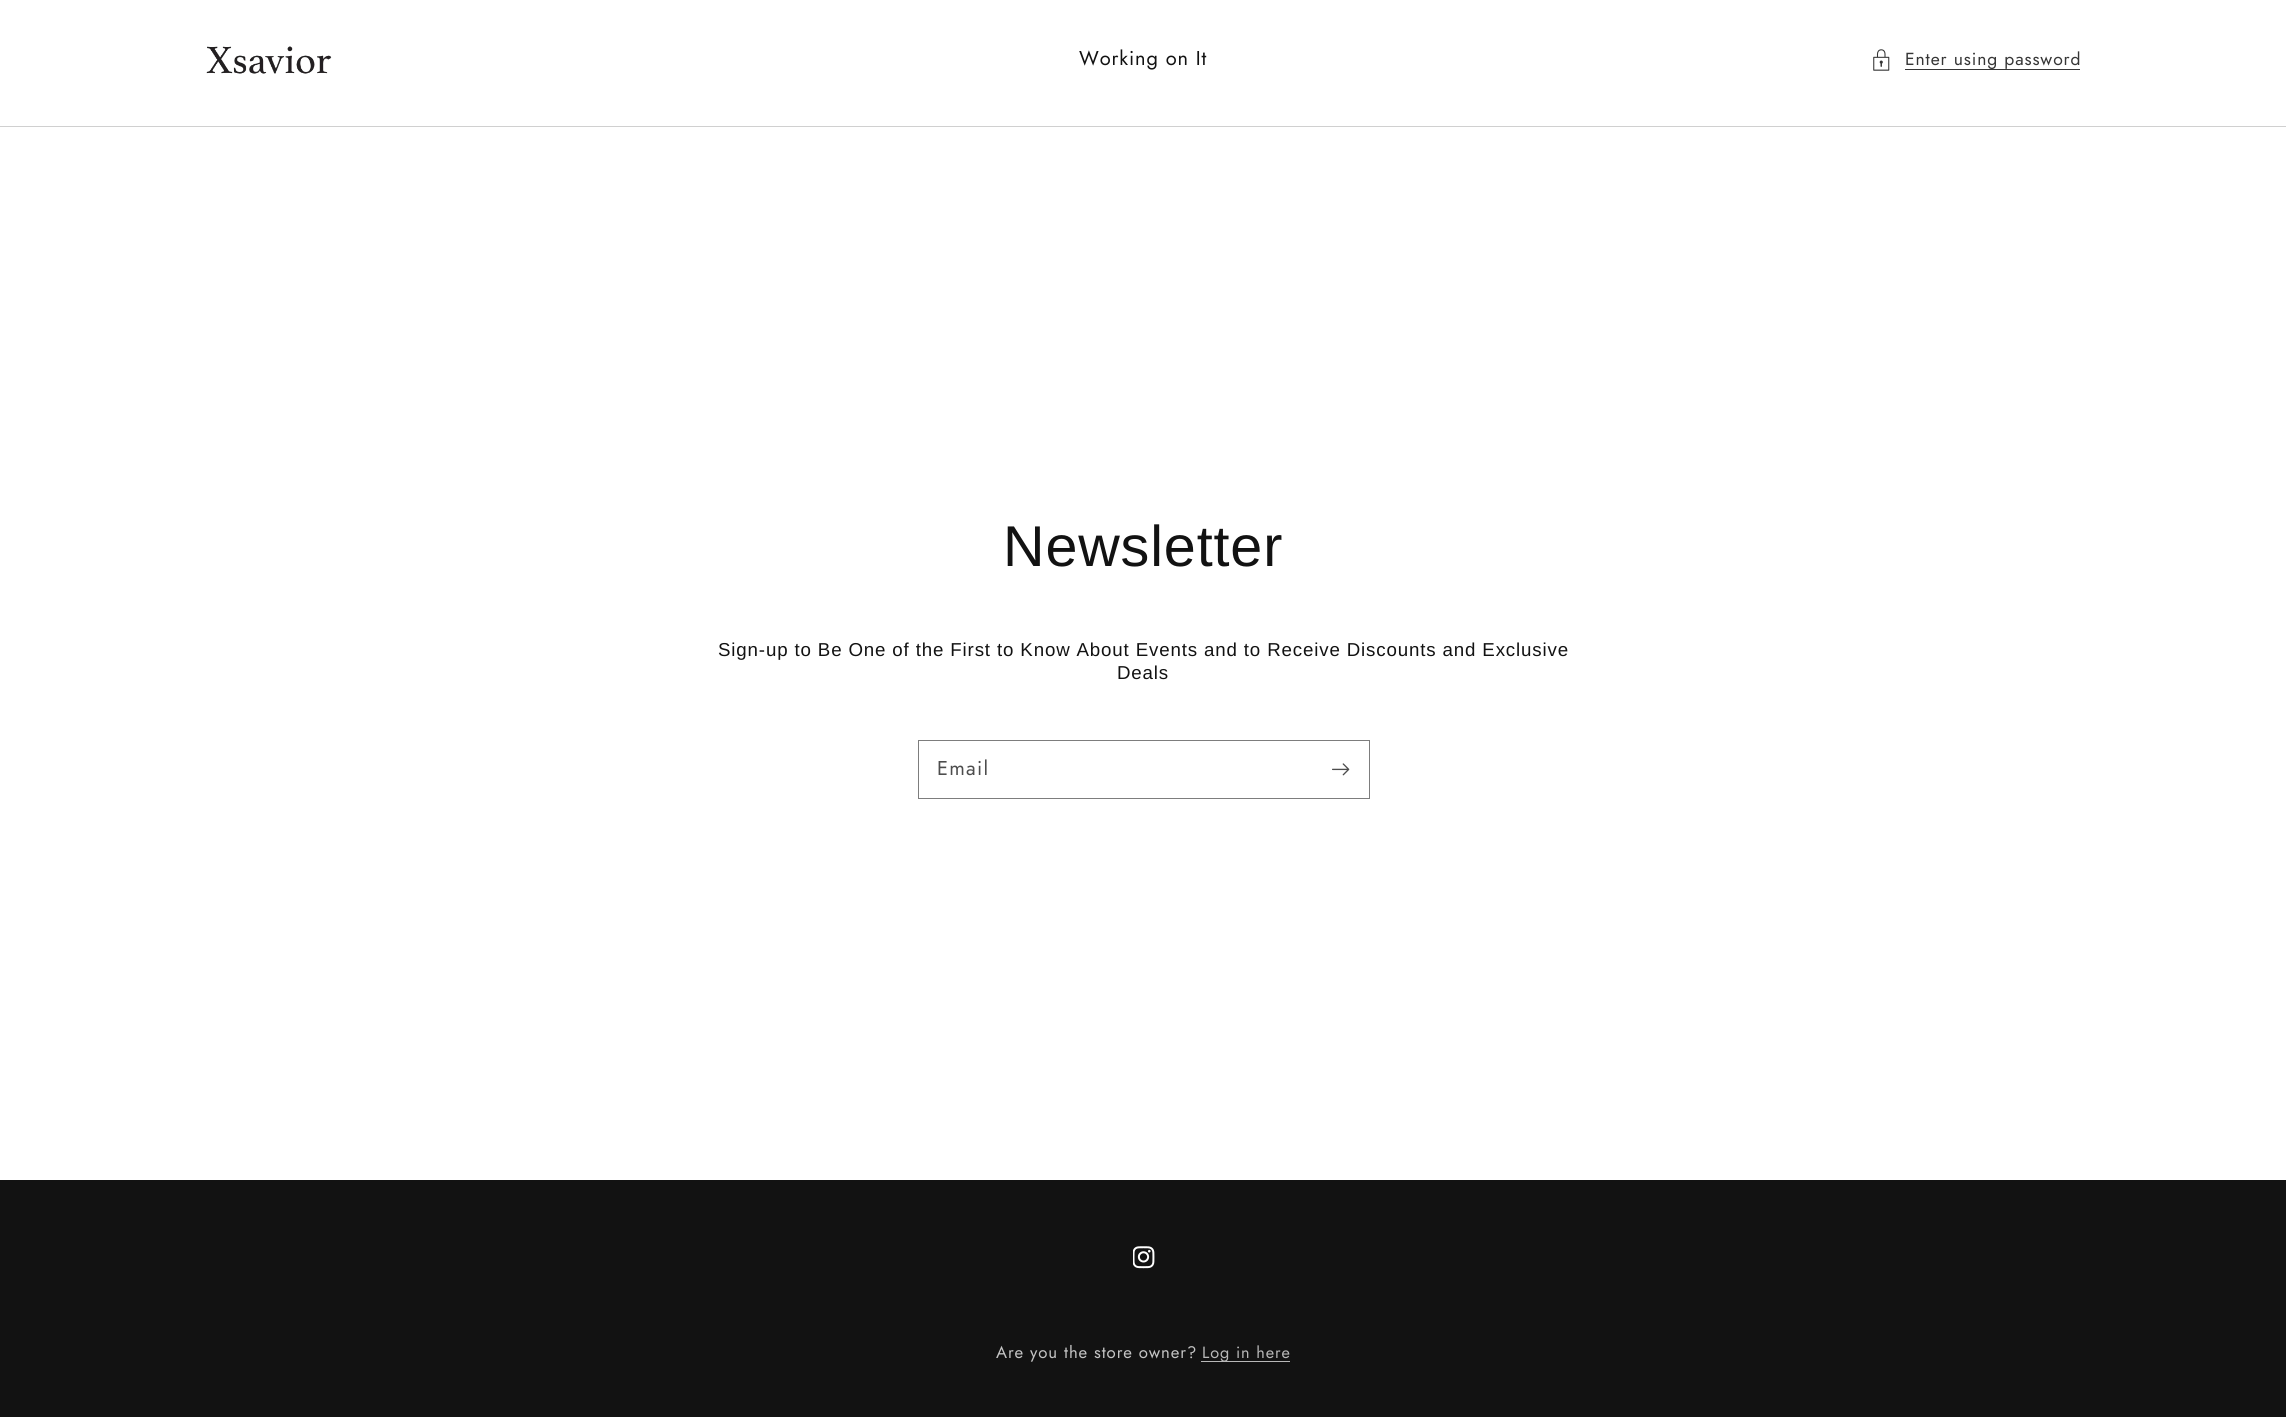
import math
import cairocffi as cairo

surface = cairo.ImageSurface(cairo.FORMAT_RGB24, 2286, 1417)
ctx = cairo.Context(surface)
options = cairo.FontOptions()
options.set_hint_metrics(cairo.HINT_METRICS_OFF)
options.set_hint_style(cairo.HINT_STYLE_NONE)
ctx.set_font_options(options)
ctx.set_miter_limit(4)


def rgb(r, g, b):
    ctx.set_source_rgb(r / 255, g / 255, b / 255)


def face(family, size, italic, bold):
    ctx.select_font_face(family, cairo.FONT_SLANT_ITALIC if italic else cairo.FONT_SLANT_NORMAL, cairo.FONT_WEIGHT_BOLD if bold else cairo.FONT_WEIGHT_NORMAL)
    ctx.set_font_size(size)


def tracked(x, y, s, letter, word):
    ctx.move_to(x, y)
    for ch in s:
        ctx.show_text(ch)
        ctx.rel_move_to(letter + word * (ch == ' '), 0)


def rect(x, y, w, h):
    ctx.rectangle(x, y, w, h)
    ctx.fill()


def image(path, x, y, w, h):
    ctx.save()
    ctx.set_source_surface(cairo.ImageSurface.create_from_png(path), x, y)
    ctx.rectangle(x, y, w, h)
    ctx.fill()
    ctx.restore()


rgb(255, 255, 255)
ctx.paint()
image('image0.png', 206, 46, 126, 28)
face('Jost', 20, 0, 0)
rgb(18, 18, 18)
tracked(1079, 65, 'Working on It', 0.9, 0)
image('image1.png', 1873, 49, 17, 22)
face('Jost', 17.5, 0, 0)
rgb(54, 54, 54)
tracked(1905, 65, 'Enter using password', 0.9, 0)
rect(1905, 69, 175, 1)
rgb(208, 208, 208)
rect(0, 126, 2286, 1)
face('Liberation Sans', 57.5, 0, 0)
rgb(18, 18, 18)
tracked(1003, 566, 'Newsletter', 0.85, 0)
face('Liberation Sans', 18.7, 0, 0)
tracked(718, 656, 'Sign-up to Be One of the First to Know About Events and to Receive Discounts and Exclusive', 0.85, 0)
tracked(1117, 679, 'Deals', 0.85, 0)
ctx.rectangle(918.5, 740.5, 451, 58)
rgb(125, 125, 125)
ctx.set_line_width(1)
ctx.stroke()
face('Jost', 20, 0, 0)
rgb(77, 77, 77)
tracked(937, 775, 'Email', 1.25, 0)
image('image2.png', 1332, 763, 18, 13)
rgb(18, 18, 18)
rect(0, 1180, 2286, 237)
image('image3.png', 1133, 1246, 22, 23)
face('Jost', 16.75, 0, 0)
rgb(196, 196, 196)
tracked(996, 1358, 'Are you the store owner?', 0.9, 0)
rgb(184, 184, 184)
rect(1201, 1361, 89, 1)
face('Jost', 16.25, 0, 0)
tracked(1202, 1358, 'Log in here', 0.9, 0)
surface.write_to_png('render.png')
